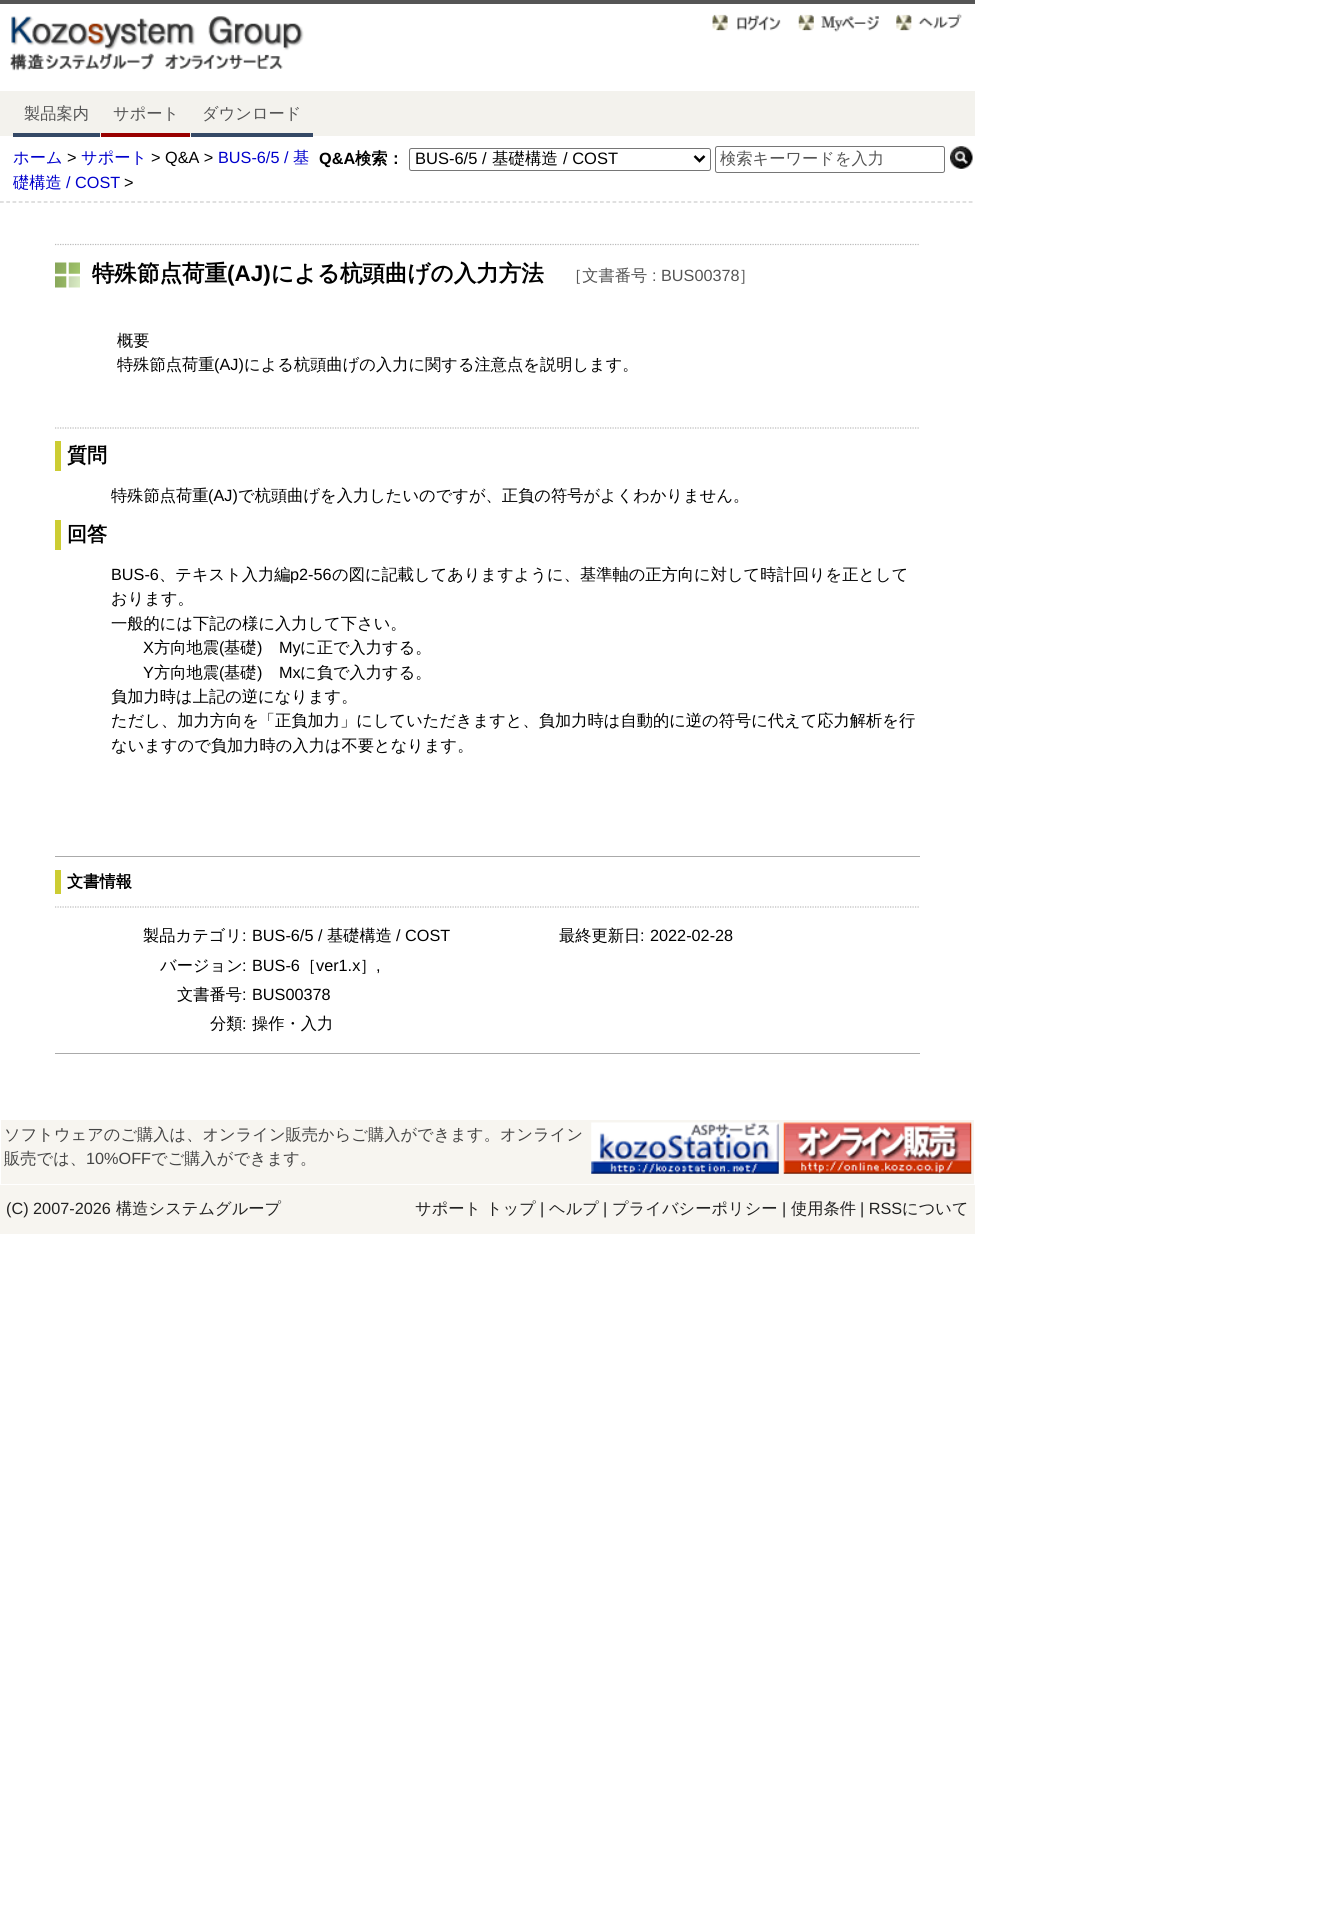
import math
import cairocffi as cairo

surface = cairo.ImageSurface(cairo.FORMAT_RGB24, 1341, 1905)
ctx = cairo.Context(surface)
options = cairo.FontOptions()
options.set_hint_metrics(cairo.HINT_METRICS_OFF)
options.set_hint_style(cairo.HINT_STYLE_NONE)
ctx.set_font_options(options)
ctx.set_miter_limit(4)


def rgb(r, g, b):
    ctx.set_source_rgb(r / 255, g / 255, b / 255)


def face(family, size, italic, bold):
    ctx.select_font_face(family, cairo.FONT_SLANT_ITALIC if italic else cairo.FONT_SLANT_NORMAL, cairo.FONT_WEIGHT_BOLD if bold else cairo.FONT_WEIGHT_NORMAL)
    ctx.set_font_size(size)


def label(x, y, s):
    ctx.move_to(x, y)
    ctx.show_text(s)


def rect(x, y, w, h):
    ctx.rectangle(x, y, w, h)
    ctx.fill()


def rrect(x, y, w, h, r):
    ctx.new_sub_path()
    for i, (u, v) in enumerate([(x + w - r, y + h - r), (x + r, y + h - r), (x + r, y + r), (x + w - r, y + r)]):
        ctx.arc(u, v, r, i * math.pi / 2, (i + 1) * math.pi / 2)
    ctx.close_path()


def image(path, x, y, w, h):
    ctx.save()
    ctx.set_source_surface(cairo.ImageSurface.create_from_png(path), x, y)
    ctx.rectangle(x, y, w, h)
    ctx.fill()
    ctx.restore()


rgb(255, 255, 255)
ctx.paint()
rgb(85, 85, 85)
rect(0, 0, 975, 4)
image('image0.png', 10, 16, 294, 55)
image('image1.png', 712, 14, 69, 17)
image('image2.png', 798, 14, 81, 18)
image('image3.png', 896, 13, 66, 18)
rgb(243, 242, 237)
rect(0, 91, 975, 45)
rgb(53, 73, 102)
rect(13, 133, 87, 4)
face('WenQuanYi Zen Hei Medium', 16.25, 0, 0)
rgb(85, 85, 85)
label(24, 119, '製品案内')
rgb(153, 0, 0)
rect(101, 133, 89, 4)
rgb(85, 85, 85)
label(113, 119, 'サポート')
rgb(53, 73, 102)
rect(191, 133, 122, 4)
rgb(85, 85, 85)
label(202, 119, 'ダウンロード')
ctx.new_path()
ctx.move_to(0, 202)
ctx.line_to(972.5, 202)
rgb(204, 204, 204)
ctx.set_line_width(1.2)
ctx.set_dash([3.75, 2.5])
ctx.stroke()
rgb(0, 0, 204)
label(13, 163, 'ホーム')
face('Liberation Sans', 16.25, 0, 0)
rgb(0, 0, 0)
label(67, 163, '>')
face('WenQuanYi Zen Hei Medium', 16.25, 0, 0)
rgb(0, 0, 204)
label(81, 163, 'サポート')
face('Liberation Sans', 16.25, 0, 0)
rgb(0, 0, 0)
label(151, 163, '> Q&A >')
rgb(0, 0, 204)
label(218, 163, 'BUS-6/5 /')
face('WenQuanYi Zen Hei Medium', 16.25, 0, 0)
label(293, 163, '基')
label(13, 188, '礎構造')
face('Liberation Sans', 16.25, 0, 0)
label(66, 188, '/ COST')
rgb(0, 0, 0)
label(124, 188, '>')
face('Liberation Sans', 16.25, 0, 1)
label(319, 164, 'Q&A')
face('WenQuanYi Zen Hei', 16.25, 0, 1)
label(355, 164, '検索：')
rrect(409.5, 148.5, 301, 22, 2)
rgb(118, 118, 118)
ctx.set_line_width(1)
ctx.set_dash([])
ctx.stroke()
ctx.new_path()
ctx.move_to(694.5, 156)
ctx.line_to(699.5, 161)
ctx.line_to(704.5, 156)
rgb(0, 0, 0)
ctx.set_line_width(2.5)
ctx.stroke()
face('Liberation Sans', 16.5, 0, 0)
label(415, 164, 'BUS-6/5 /')
face('WenQuanYi Zen Hei Medium', 16.5, 0, 0)
label(492, 164, '基礎構造')
face('Liberation Sans', 16.5, 0, 0)
label(563, 164, '/ COST')
rrect(715.5, 146.5, 229, 26, 2)
rgb(118, 118, 118)
ctx.set_line_width(1)
ctx.stroke()
face('WenQuanYi Zen Hei Medium', 16.25, 0, 0)
rgb(85, 85, 85)
label(720, 164, '検索キーワードを入力')
image('image4.png', 950, 146, 23, 23)
ctx.new_path()
ctx.move_to(55, 244.5)
ctx.line_to(920, 244.5)
rgb(187, 187, 187)
ctx.set_line_width(1.2)
ctx.set_dash([1.25, 1.25])
ctx.stroke()
image('image5.png', 55, 262, 25, 26)
face('WenQuanYi Zen Hei', 22.5, 0, 1)
rgb(0, 0, 0)
label(92, 281, '特殊節点荷重')
face('Liberation Sans', 22.5, 0, 1)
label(227, 281, '(AJ)')
face('WenQuanYi Zen Hei', 22.5, 0, 1)
label(271, 281, 'による杭頭曲げの入力方法')
face('WenQuanYi Zen Hei Medium', 16.25, 0, 0)
rgb(85, 85, 85)
label(566, 281, '［文書番号')
face('Liberation Sans', 16.25, 0, 0)
label(652, 281, ': BUS00378')
face('WenQuanYi Zen Hei Medium', 16.25, 0, 0)
label(739, 281, '］')
rgb(0, 0, 0)
label(117, 346, '概要')
label(117, 370, '特殊節点荷重')
face('Liberation Sans', 16.25, 0, 0)
label(214, 370, '(AJ)')
face('WenQuanYi Zen Hei Medium', 16.25, 0, 0)
label(244, 370, 'による杭頭曲げの入力に関する注意点を説明します。')
ctx.new_path()
ctx.move_to(55, 428)
ctx.line_to(920, 428)
rgb(187, 187, 187)
ctx.stroke()
rgb(204, 204, 51)
rect(55, 441, 6, 30)
face('WenQuanYi Zen Hei', 20, 0, 1)
rgb(0, 0, 0)
label(67, 462, '質問')
face('WenQuanYi Zen Hei Medium', 16.25, 0, 0)
label(111, 501, '特殊節点荷重')
face('Liberation Sans', 16.25, 0, 0)
label(208, 501, '(AJ)')
face('WenQuanYi Zen Hei Medium', 16.25, 0, 0)
label(238, 501, 'で杭頭曲げを入力したいのですが、正負の符号がよくわかりません。')
rgb(204, 204, 51)
rect(55, 520, 6, 30)
face('WenQuanYi Zen Hei', 20, 0, 1)
rgb(0, 0, 0)
label(67, 541, '回答')
face('Liberation Sans', 16.25, 0, 0)
label(111, 580, 'BUS-6')
face('WenQuanYi Zen Hei Medium', 16.25, 0, 0)
label(159, 580, '、テキスト入力編')
face('Liberation Sans', 16.25, 0, 0)
label(290, 580, 'p2-56')
face('WenQuanYi Zen Hei Medium', 16.25, 0, 0)
label(332, 580, 'の図に記載してありますように、基準軸の正方向に対して時計回りを正として')
label(111, 604, 'おります。')
label(111, 629, '一般的には下記の様に入力して下さい。')
face('Liberation Sans', 16.25, 0, 0)
label(143, 653, 'X')
face('WenQuanYi Zen Hei Medium', 16.25, 0, 0)
label(154, 653, '方向地震')
face('Liberation Sans', 16.25, 0, 0)
label(219, 653, '(')
face('WenQuanYi Zen Hei Medium', 16.25, 0, 0)
label(224, 653, '基礎')
face('Liberation Sans', 16.25, 0, 0)
label(257, 653, ')')
label(279, 653, 'My')
face('WenQuanYi Zen Hei Medium', 16.25, 0, 0)
label(300, 653, 'に正で入力する。')
face('Liberation Sans', 16.25, 0, 0)
label(143, 678, 'Y')
face('WenQuanYi Zen Hei Medium', 16.25, 0, 0)
label(154, 678, '方向地震')
face('Liberation Sans', 16.25, 0, 0)
label(219, 678, '(')
face('WenQuanYi Zen Hei Medium', 16.25, 0, 0)
label(224, 678, '基礎')
face('Liberation Sans', 16.25, 0, 0)
label(257, 678, ')')
label(279, 678, 'Mx')
face('WenQuanYi Zen Hei Medium', 16.25, 0, 0)
label(300, 678, 'に負で入力する。')
label(111, 702, '負加力時は上記の逆になります。')
label(111, 726, 'ただし、加力方向を「正負加力」にしていただきますと、負加力時は自動的に逆の符号に代えて応力解析を行')
label(111, 751, 'ないますので負加力時の入力は不要となります。')
rgb(170, 170, 170)
rect(55, 856, 865, 1)
rgb(204, 204, 51)
rect(55, 870, 6, 24)
face('WenQuanYi Zen Hei', 16.25, 0, 1)
rgb(0, 0, 0)
label(67, 887, '文書情報')
ctx.new_path()
ctx.move_to(55, 907)
ctx.line_to(920, 907)
rgb(187, 187, 187)
ctx.stroke()
face('WenQuanYi Zen Hei Medium', 16.25, 0, 0)
rgb(0, 0, 0)
label(143, 941, '製品カテゴリ')
face('Liberation Sans', 16.25, 0, 0)
label(242, 941, ':')
label(252, 941, 'BUS-6/5 /')
face('WenQuanYi Zen Hei Medium', 16.25, 0, 0)
label(327, 941, '基礎構造')
face('Liberation Sans', 16.25, 0, 0)
label(396, 941, '/ COST')
face('WenQuanYi Zen Hei Medium', 16.25, 0, 0)
label(559, 941, '最終更新日')
face('Liberation Sans', 16.25, 0, 0)
label(640, 941, ':')
label(650, 941, '2022-02-28')
face('WenQuanYi Zen Hei Medium', 16.25, 0, 0)
label(160, 971, 'バージョン')
face('Liberation Sans', 16.25, 0, 0)
label(242, 971, ':')
label(252, 971, 'BUS-6')
face('WenQuanYi Zen Hei Medium', 16.25, 0, 0)
label(300, 971, '［')
face('Liberation Sans', 16.25, 0, 0)
label(316, 971, 'ver1.x')
face('WenQuanYi Zen Hei Medium', 16.25, 0, 0)
label(360, 971, '］')
face('Liberation Sans', 16.25, 0, 0)
label(376, 971, ',')
face('WenQuanYi Zen Hei Medium', 16.25, 0, 0)
label(177, 1000, '文書番号')
face('Liberation Sans', 16.25, 0, 0)
label(242, 1000, ':')
label(252, 1000, 'BUS00378')
face('WenQuanYi Zen Hei Medium', 16.25, 0, 0)
label(210, 1029, '分類')
face('Liberation Sans', 16.25, 0, 0)
label(242, 1029, ':')
face('WenQuanYi Zen Hei Medium', 16.25, 0, 0)
label(252, 1029, '操作・入力')
rgb(170, 170, 170)
rect(55, 1053, 865, 1)
rgb(247, 245, 240)
rect(1, 1120, 973, 64)
rgb(68, 68, 68)
label(4, 1140, 'ソフトウェアのご購入は、オンライン販売からご購入ができます。オンライン')
image('image6.png', 591, 1122, 188, 52)
image('image7.png', 783, 1122, 189, 52)
label(4, 1164, '販売では、')
face('Liberation Sans', 16.25, 0, 0)
label(86, 1164, '10%OFF')
face('WenQuanYi Zen Hei Medium', 16.25, 0, 0)
label(151, 1164, 'でご購入ができます。')
rgb(247, 245, 240)
rect(0, 1185, 975, 49)
face('Liberation Sans', 16.25, 0, 0)
rgb(34, 34, 34)
label(6, 1214, '(C) 2007-2026')
face('WenQuanYi Zen Hei Medium', 16.25, 0, 0)
label(116, 1214, '構造システムグループ')
label(415, 1214, 'サポート トップ')
face('Liberation Sans', 16.25, 0, 0)
label(540, 1214, '|')
face('WenQuanYi Zen Hei Medium', 16.25, 0, 0)
label(549, 1214, 'ヘルプ')
face('Liberation Sans', 16.25, 0, 0)
label(603, 1214, '|')
face('WenQuanYi Zen Hei Medium', 16.25, 0, 0)
label(612, 1214, 'プライバシーポリシー')
face('Liberation Sans', 16.25, 0, 0)
label(782, 1214, '|')
face('WenQuanYi Zen Hei Medium', 16.25, 0, 0)
label(791, 1214, '使用条件')
face('Liberation Sans', 16.25, 0, 0)
label(860, 1214, '| RSS')
face('WenQuanYi Zen Hei Medium', 16.25, 0, 0)
label(902, 1214, 'について')
surface.write_to_png('render.png')
